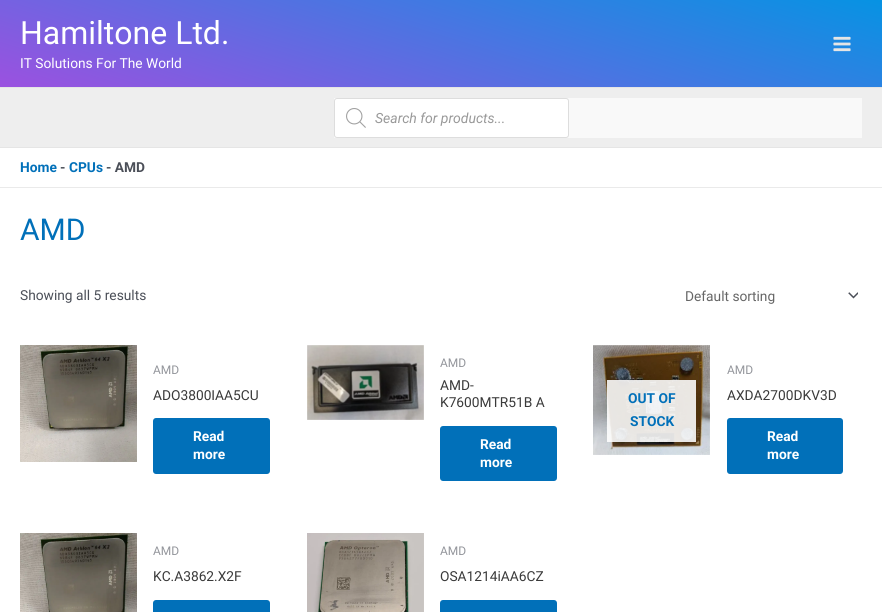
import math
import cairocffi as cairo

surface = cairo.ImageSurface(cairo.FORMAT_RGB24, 882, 612)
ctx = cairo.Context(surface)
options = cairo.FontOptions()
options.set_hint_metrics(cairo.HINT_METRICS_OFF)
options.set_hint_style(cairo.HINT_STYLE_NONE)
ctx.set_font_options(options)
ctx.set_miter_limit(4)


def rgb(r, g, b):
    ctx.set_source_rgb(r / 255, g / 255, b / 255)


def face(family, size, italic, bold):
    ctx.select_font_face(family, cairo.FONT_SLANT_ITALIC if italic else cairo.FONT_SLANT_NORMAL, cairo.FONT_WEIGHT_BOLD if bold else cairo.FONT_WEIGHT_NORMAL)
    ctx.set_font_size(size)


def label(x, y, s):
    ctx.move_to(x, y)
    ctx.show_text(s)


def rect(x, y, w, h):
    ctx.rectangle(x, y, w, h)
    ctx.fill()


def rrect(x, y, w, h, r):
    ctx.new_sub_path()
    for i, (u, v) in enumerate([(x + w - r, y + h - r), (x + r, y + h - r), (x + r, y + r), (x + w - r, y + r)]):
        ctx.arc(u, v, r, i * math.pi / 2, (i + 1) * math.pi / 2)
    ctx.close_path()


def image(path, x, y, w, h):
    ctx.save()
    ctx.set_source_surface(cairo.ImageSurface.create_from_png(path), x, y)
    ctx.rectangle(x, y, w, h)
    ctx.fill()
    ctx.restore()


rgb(255, 255, 255)
ctx.paint()
gradient = cairo.LinearGradient(491, -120, 391, 207)
gradient.add_color_stop_rgba(0, 0.024, 0.576, 0.89, 1)
gradient.add_color_stop_rgba(1, 0.608, 0.318, 0.878, 1)
ctx.set_source(gradient)
rect(0, 0, 882, 87)
rgb(229, 229, 229)
rect(0, 87, 882, 1)
face('Roboto', 32, 0, 0)
rgb(255, 255, 255)
label(20, 44, 'Hamiltone Ltd.')
face('Roboto', 13.75, 0, 0)
label(20, 68, 'IT Solutions For The World')
image('image0.png', 833, 36, 18, 16)
rgb(238, 238, 238)
rect(0, 88, 882, 59)
rgb(229, 229, 229)
rect(0, 147, 882, 1)
rgb(249, 249, 249)
rect(334, 98, 528, 40)
rgb(255, 255, 255)
rrect(334.5, 98.5, 234, 39, 2.5)
ctx.fill_preserve()
rgb(221, 221, 221)
ctx.set_line_width(1)
ctx.stroke()
image('image1.png', 346, 108, 20, 20)
face('Roboto', 14, 1, 0)
rgb(153, 153, 153)
label(375, 123, 'Search for products...')
rgb(234, 234, 234)
rect(0, 187, 882, 1)
face('Roboto', 13.75, 0, 1)
rgb(1, 112, 185)
label(20, 172, 'Home')
rgb(75, 79, 88)
label(60, 172, '-')
rgb(1, 112, 185)
label(69, 172, 'CPUs')
rgb(75, 79, 88)
label(106, 172, '- AMD')
face('Roboto', 30, 0, 0)
rgb(1, 112, 185)
label(20, 240, 'AMD')
face('Roboto', 13.75, 0, 0)
rgb(75, 79, 88)
label(20, 300, 'Showing all 5 results')
image('image2.png', 848, 292, 10, 7)
rgb(102, 102, 102)
label(685, 301, 'Default sorting')
image('image3.png', 20, 345, 117, 117)
face('Roboto', 12, 0, 0)
rgb(147, 149, 155)
label(153, 374, 'AMD')
face('Roboto', 13.75, 0, 0)
rgb(58, 58, 58)
label(153, 400, 'ADO3800IAA5CU')
rgb(1, 112, 185)
rrect(153, 418, 117, 56, 3)
ctx.fill()
face('Roboto', 13.75, 0, 1)
rgb(255, 255, 255)
label(193, 441, 'Read')
label(193, 459, 'more')
image('image4.png', 307, 345, 117, 75)
face('Roboto', 12, 0, 0)
rgb(147, 149, 155)
label(440, 367, 'AMD')
face('Roboto', 13.75, 0, 0)
rgb(58, 58, 58)
label(440, 390, 'AMD-')
label(440, 407, 'K7600MTR51B A')
rgb(1, 112, 185)
rrect(440, 426, 117, 55, 3)
ctx.fill()
face('Roboto', 13.75, 0, 1)
rgb(255, 255, 255)
label(480, 449, 'Read')
label(480, 467, 'more')
image('image5.png', 593, 345, 117, 110)
ctx.set_source_rgba(1, 1, 1, 0.88)
rect(607, 380, 89, 62)
rgb(1, 112, 185)
label(628, 403, 'OUT OF')
label(630, 426, 'STOCK')
face('Roboto', 12, 0, 0)
rgb(147, 149, 155)
label(727, 374, 'AMD')
face('Roboto', 13.75, 0, 0)
rgb(58, 58, 58)
label(727, 400, 'AXDA2700DKV3D')
rgb(1, 112, 185)
rrect(727, 418, 116, 56, 3)
ctx.fill()
face('Roboto', 13.75, 0, 1)
rgb(255, 255, 255)
label(767, 441, 'Read')
label(767, 459, 'more')
image('image6.png', 20, 533, 117, 79)
face('Roboto', 12, 0, 0)
rgb(147, 149, 155)
label(153, 555, 'AMD')
face('Roboto', 13.75, 0, 0)
rgb(58, 58, 58)
label(153, 581, 'KC.A3862.X2F')
rgb(1, 112, 185)
rrect(153, 600, 117, 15, 3)
ctx.fill()
image('image7.png', 307, 533, 117, 79)
face('Roboto', 12, 0, 0)
rgb(147, 149, 155)
label(440, 555, 'AMD')
face('Roboto', 13.75, 0, 0)
rgb(58, 58, 58)
label(440, 581, 'OSA1214iAA6CZ')
rgb(1, 112, 185)
rrect(440, 600, 117, 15, 3)
ctx.fill()
surface.write_to_png('render.png')
